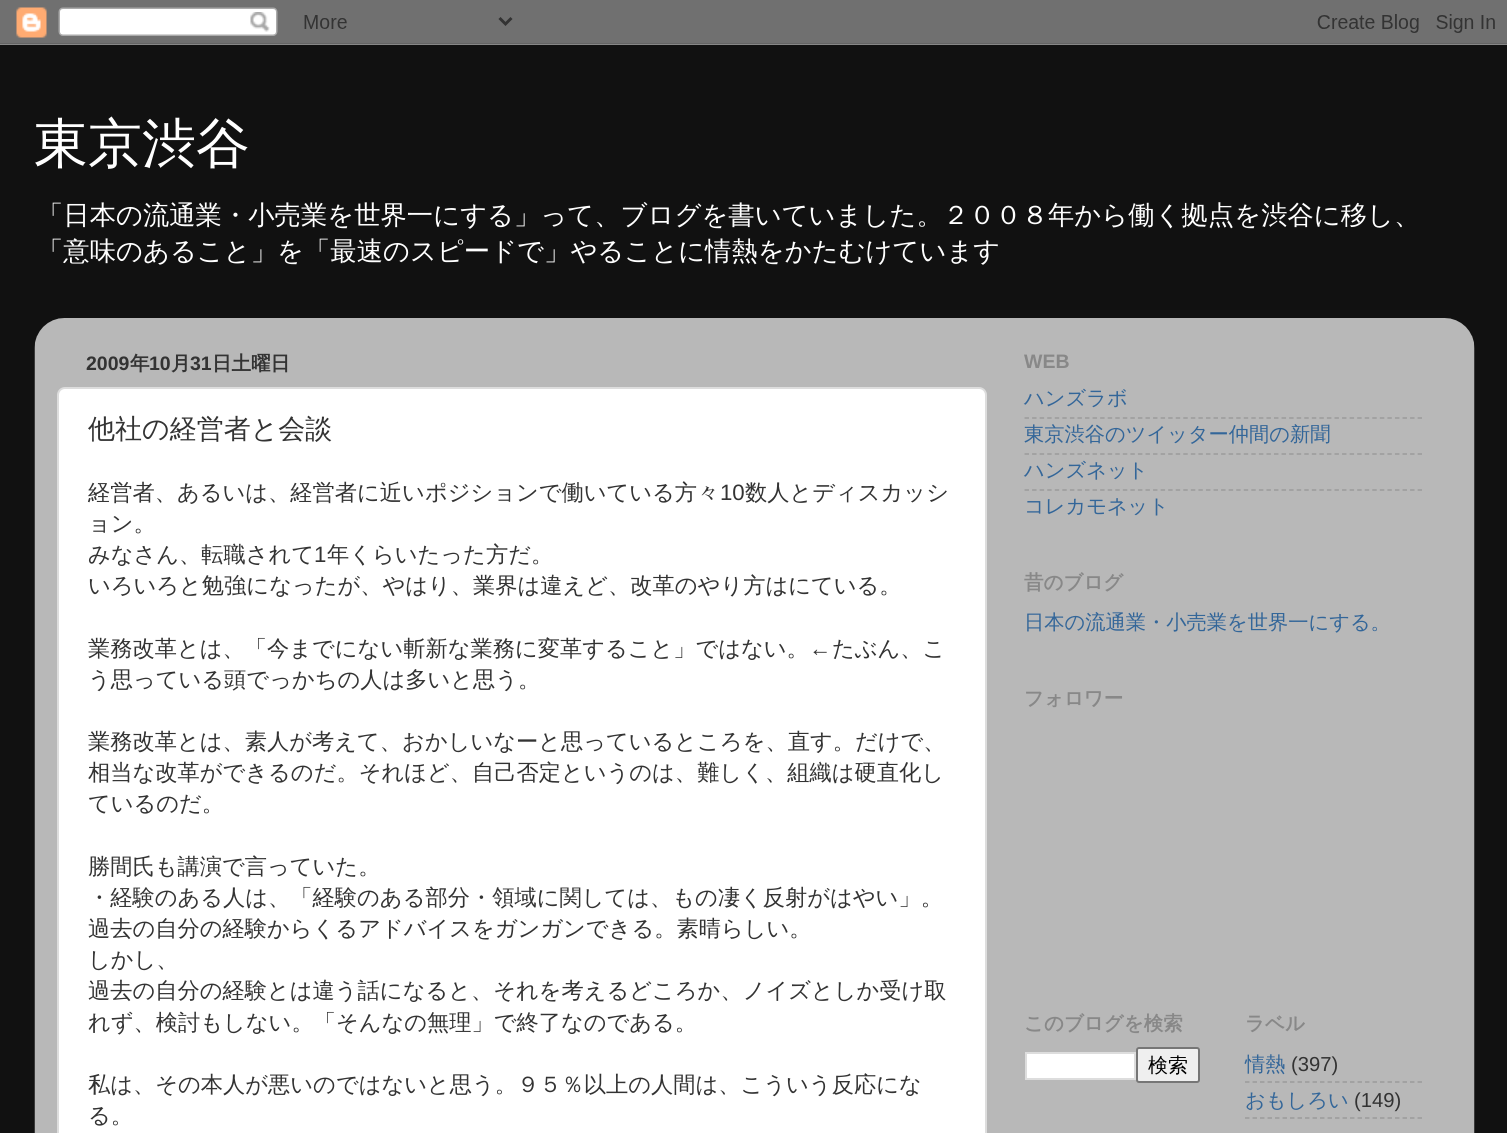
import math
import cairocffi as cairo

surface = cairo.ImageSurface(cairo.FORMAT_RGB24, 1507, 1133)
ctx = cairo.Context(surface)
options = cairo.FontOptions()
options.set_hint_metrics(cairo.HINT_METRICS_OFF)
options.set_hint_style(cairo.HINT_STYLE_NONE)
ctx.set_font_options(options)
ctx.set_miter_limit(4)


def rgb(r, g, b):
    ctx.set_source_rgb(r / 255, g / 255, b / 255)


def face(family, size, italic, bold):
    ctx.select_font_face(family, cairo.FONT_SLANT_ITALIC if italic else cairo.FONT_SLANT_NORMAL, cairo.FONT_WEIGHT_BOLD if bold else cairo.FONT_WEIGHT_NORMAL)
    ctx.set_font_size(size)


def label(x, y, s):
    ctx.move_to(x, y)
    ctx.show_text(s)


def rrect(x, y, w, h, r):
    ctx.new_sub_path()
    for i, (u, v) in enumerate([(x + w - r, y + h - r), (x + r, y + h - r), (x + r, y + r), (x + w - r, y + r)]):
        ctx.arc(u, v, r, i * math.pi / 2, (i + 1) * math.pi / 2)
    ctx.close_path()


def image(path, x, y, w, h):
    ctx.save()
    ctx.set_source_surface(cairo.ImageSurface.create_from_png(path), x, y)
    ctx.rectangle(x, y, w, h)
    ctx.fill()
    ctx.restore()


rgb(17, 17, 17)
ctx.paint()
image('image0.png', 0, 0, 1507, 45)
face('WenQuanYi Zen Hei Medium', 54, 0, 0)
rgb(255, 255, 255)
label(34, 162, '東京渋谷')
face('WenQuanYi Zen Hei Medium', 26.33, 0, 0)
label(37, 224, '「日本の流通業・小売業を世界一にする」って、ブログを書いていました。２００８年から働く拠点を渋谷に移し、')
label(37, 260, '「意味のあること」を「最速のスピードで」やることに情熱をかたむけています')
image('image1.png', 34, 318, 1441, 815)
face('Liberation Sans', 19.5, 0, 1)
rgb(51, 51, 51)
label(86, 370, '2009')
face('WenQuanYi Zen Hei', 19.5, 0, 1)
label(130, 370, '年')
face('Liberation Sans', 19.5, 0, 1)
label(149, 370, '10')
face('WenQuanYi Zen Hei', 19.5, 0, 1)
label(171, 370, '月')
face('Liberation Sans', 19.5, 0, 1)
label(190, 370, '31')
face('WenQuanYi Zen Hei', 19.5, 0, 1)
label(212, 370, '日土曜日')
rgb(255, 255, 255)
rrect(58, 388, 928, 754, 7)
ctx.fill_preserve()
rgb(221, 221, 221)
ctx.stroke()
face('WenQuanYi Zen Hei Medium', 27, 0, 0)
rgb(51, 51, 51)
label(88, 438, '他社の経営者と会談')
face('WenQuanYi Zen Hei Medium', 22.25, 0, 0)
label(88, 500, '経営者、あるいは、経営者に近いポジションで働いている方々')
face('Liberation Sans', 22.25, 0, 0)
label(720, 500, '10')
face('WenQuanYi Zen Hei Medium', 22.25, 0, 0)
label(745, 500, '数人とディスカッシ')
label(88, 531, 'ョン。')
label(88, 562, 'みなさん、転職されて')
face('Liberation Sans', 22.25, 0, 0)
label(314, 562, '1')
face('WenQuanYi Zen Hei Medium', 22.25, 0, 0)
label(327, 562, '年くらいたった方だ。')
label(88, 593, 'いろいろと勉強になったが、やはり、業界は違えど、改革のやり方はにている。')
label(88, 656, '業務改革とは、「今までにない斬新な業務に変革すること」ではない。')
face('Liberation Sans', 22.25, 0, 0)
label(809, 656, '←')
face('WenQuanYi Zen Hei Medium', 22.25, 0, 0)
label(832, 656, 'たぶん、こ')
label(88, 687, 'う思っている頭でっかちの人は多いと思う。')
label(88, 749, '業務改革とは、素人が考えて、おかしいなーと思っているところを、直す。だけで、')
label(88, 780, '相当な改革ができるのだ。それほど、自己否定というのは、難しく、組織は硬直化し')
label(88, 811, 'ているのだ。')
label(88, 874, '勝間氏も講演で言っていた。')
label(88, 905, '・経験のある人は、「経験のある部分・領域に関しては、もの凄く反射がはやい」。')
label(88, 936, '過去の自分の経験からくるアドバイスをガンガンできる。素晴らしい。')
label(88, 967, 'しかし、')
label(88, 998, '過去の自分の経験とは違う話になると、それを考えるどころか、ノイズとしか受け取')
label(88, 1030, 'れず、検討もしない。「そんなの無理」で終了なのである。')
label(88, 1092, '私は、その本人が悪いのではないと思う。９５％以上の人間は、こういう反応にな')
label(88, 1123, 'る。')
face('Liberation Sans', 19.5, 0, 1)
rgb(136, 136, 136)
label(1024, 368, 'WEB')
face('WenQuanYi Zen Hei Medium', 20.25, 0, 0)
rgb(51, 102, 153)
label(1024, 405, 'ハンズラボ')
ctx.new_path()
ctx.move_to(1024.5, 418)
ctx.line_to(1422, 418)
rgb(156, 156, 156)
ctx.set_line_width(1.5)
ctx.set_dash([4.5, 3.06])
ctx.stroke()
rgb(51, 102, 153)
label(1024, 441, '東京渋谷のツイッター仲間の新聞')
ctx.new_path()
ctx.move_to(1024.5, 454)
ctx.line_to(1422, 454)
rgb(156, 156, 156)
ctx.stroke()
rgb(51, 102, 153)
label(1024, 477, 'ハンズネット')
ctx.new_path()
ctx.move_to(1024.5, 490)
ctx.line_to(1422, 490)
rgb(156, 156, 156)
ctx.stroke()
rgb(51, 102, 153)
label(1024, 513, 'コレカモネット')
face('WenQuanYi Zen Hei', 19.5, 0, 1)
rgb(136, 136, 136)
label(1024, 589, '昔のブログ')
face('WenQuanYi Zen Hei Medium', 20.25, 0, 0)
rgb(51, 102, 153)
label(1024, 629, '日本の流通業・小売業を世界一にする。')
face('WenQuanYi Zen Hei', 19.5, 0, 1)
rgb(136, 136, 136)
label(1024, 705, 'フォロワー')
label(1024, 1030, 'このブログを検索')
rgb(255, 255, 255)
ctx.rectangle(1026, 1053, 109, 26)
ctx.fill_preserve()
rgb(221, 221, 221)
ctx.set_line_width(2)
ctx.set_dash([])
ctx.stroke()
rgb(239, 239, 239)
rrect(1137, 1048, 62, 34, 2)
ctx.fill_preserve()
rgb(118, 118, 118)
ctx.stroke()
face('WenQuanYi Zen Hei Medium', 20, 0, 0)
rgb(0, 0, 0)
label(1148, 1072, '検索')
face('WenQuanYi Zen Hei', 19.5, 0, 1)
rgb(136, 136, 136)
label(1245, 1030, 'ラベル')
face('WenQuanYi Zen Hei Medium', 20.25, 0, 0)
rgb(51, 102, 153)
label(1245, 1071, '情熱')
face('Liberation Sans', 20.25, 0, 0)
rgb(51, 51, 51)
label(1291, 1071, '(397)')
ctx.new_path()
ctx.move_to(1245, 1082)
ctx.line_to(1422, 1082)
rgb(156, 156, 156)
ctx.set_line_width(1.5)
ctx.set_dash([4.5, 3])
ctx.stroke()
face('WenQuanYi Zen Hei Medium', 20.25, 0, 0)
rgb(51, 102, 153)
label(1245, 1107, 'おもしろい')
face('Liberation Sans', 20.25, 0, 0)
rgb(51, 51, 51)
label(1354, 1107, '(149)')
ctx.new_path()
ctx.move_to(1245, 1118)
ctx.line_to(1422, 1118)
rgb(156, 156, 156)
ctx.stroke()
surface.write_to_png('render.png')
